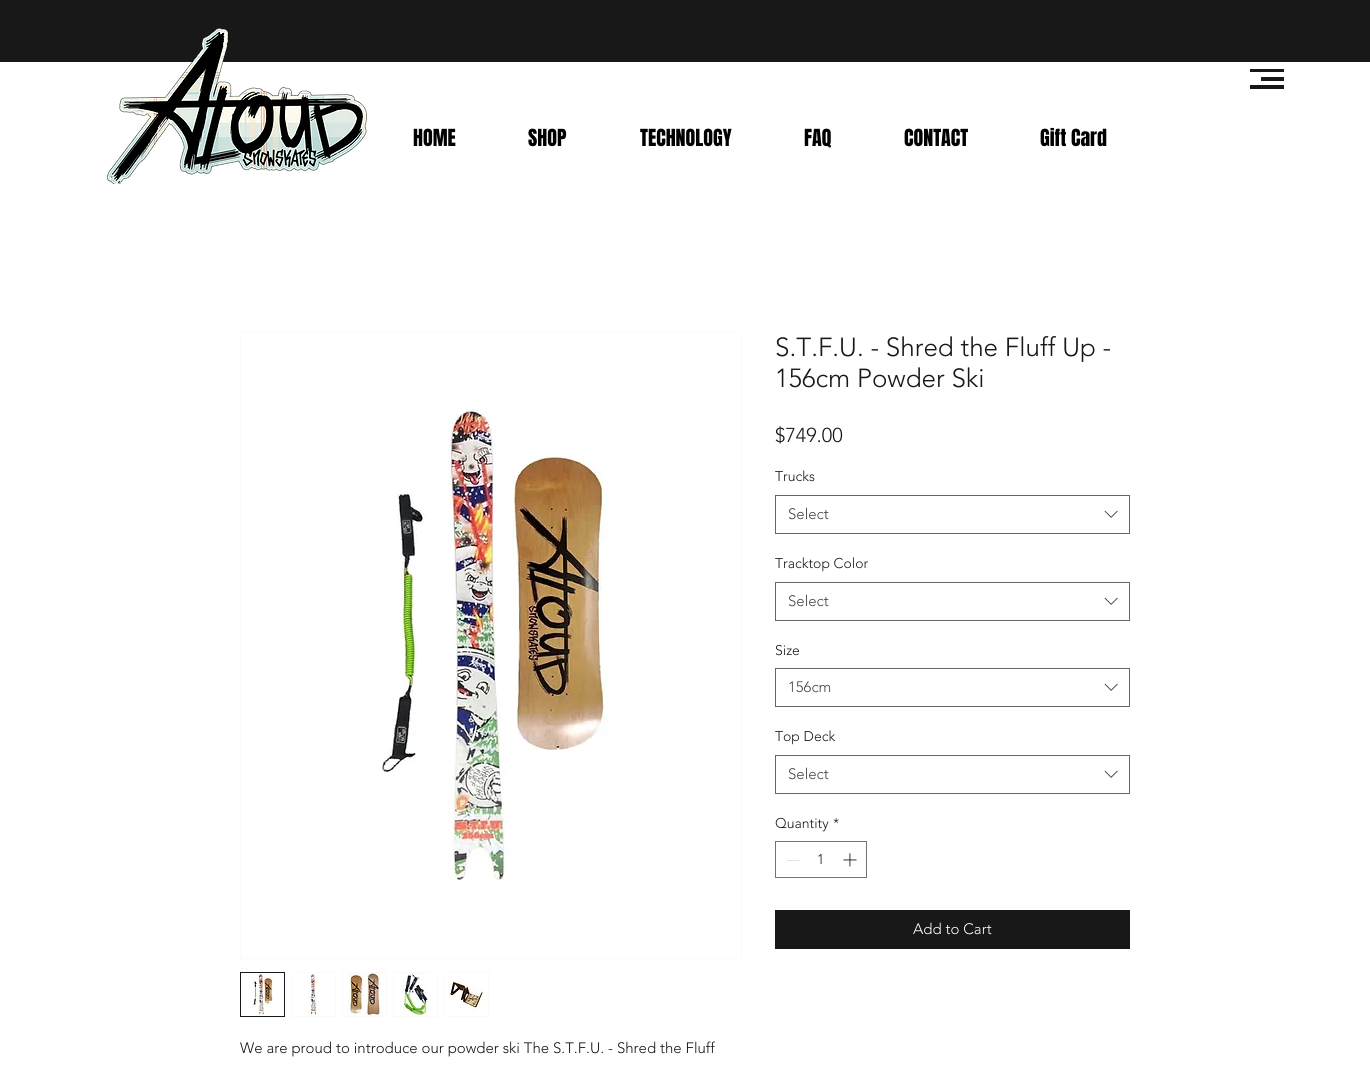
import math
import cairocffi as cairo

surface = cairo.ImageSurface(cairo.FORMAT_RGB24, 1370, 1067)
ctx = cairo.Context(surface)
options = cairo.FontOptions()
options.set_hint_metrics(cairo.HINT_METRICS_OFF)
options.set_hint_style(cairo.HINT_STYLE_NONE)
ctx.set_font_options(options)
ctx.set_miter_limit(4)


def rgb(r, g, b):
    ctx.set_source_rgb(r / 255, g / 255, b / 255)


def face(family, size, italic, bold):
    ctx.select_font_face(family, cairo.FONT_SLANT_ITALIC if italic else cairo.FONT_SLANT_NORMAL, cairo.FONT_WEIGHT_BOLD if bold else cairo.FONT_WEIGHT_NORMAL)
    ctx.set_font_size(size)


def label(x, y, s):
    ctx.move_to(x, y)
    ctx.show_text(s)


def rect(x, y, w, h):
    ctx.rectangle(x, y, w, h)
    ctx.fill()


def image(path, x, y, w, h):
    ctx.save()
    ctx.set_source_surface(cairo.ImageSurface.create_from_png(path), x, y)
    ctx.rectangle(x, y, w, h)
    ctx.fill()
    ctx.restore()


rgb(255, 255, 255)
ctx.paint()
rgb(24, 24, 24)
rect(1250, 69, 34, 3)
rect(1261, 77, 23, 4)
rect(1250, 85, 34, 4)
rect(0, 0, 1370, 62)
image('image0.png', 107, 28, 260, 156)
face('Anton', 20, 0, 0)
rgb(0, 0, 0)
label(413, 146, 'HOME')
label(528, 146, 'SHOP')
label(640, 146, 'TECHNOLOGY')
label(804, 146, 'FAQ')
label(904, 146, 'CONTACT')
label(1040, 146, 'Gift Card')
face('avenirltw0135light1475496 Light', 26, 0, 0)
rgb(24, 24, 24)
label(775, 356, 'S.T.F.U. - Shred the Fluff Up -')
label(775, 387, '156cm Powder Ski')
face('avenirltw0135light1475496 Light', 20, 0, 0)
label(775, 442, '$749.00')
face('avenirltw0135light1475496 Light', 14, 0, 0)
label(775, 481, 'Trucks')
ctx.rectangle(775.5, 495.5, 354, 38)
rgb(102, 102, 102)
ctx.set_line_width(1)
ctx.stroke()
face('avenirltw0135light1475496 Light', 15, 0, 0)
rgb(68, 68, 68)
label(788, 519, 'Select')
image('image1.png', 1104, 510, 14, 8)
face('avenirltw0135light1475496 Light', 14, 0, 0)
rgb(24, 24, 24)
label(775, 568, 'Tracktop Color')
ctx.rectangle(775.5, 582.5, 354, 38)
rgb(102, 102, 102)
ctx.stroke()
face('avenirltw0135light1475496 Light', 15, 0, 0)
rgb(68, 68, 68)
label(788, 606, 'Select')
image('image1.png', 1104, 597, 14, 8)
face('avenirltw0135light1475496 Light', 14, 0, 0)
rgb(24, 24, 24)
label(775, 655, 'Size')
ctx.rectangle(775.5, 668.5, 354, 38)
rgb(102, 102, 102)
ctx.stroke()
face('avenirltw0135light1475496 Light', 15, 0, 0)
rgb(68, 68, 68)
label(788, 692, '156cm')
image('image1.png', 1104, 683, 14, 8)
face('avenirltw0135light1475496 Light', 14, 0, 0)
rgb(24, 24, 24)
label(775, 741, 'Top Deck')
ctx.rectangle(775.5, 755.5, 354, 38)
rgb(102, 102, 102)
ctx.stroke()
face('avenirltw0135light1475496 Light', 15, 0, 0)
rgb(68, 68, 68)
label(788, 779, 'Select')
image('image1.png', 1104, 770, 14, 8)
face('avenirltw0135light1475496 Light', 14, 0, 0)
rgb(24, 24, 24)
label(775, 828, 'Quantity')
label(833, 828, '*')
ctx.rectangle(775.5, 841.5, 91, 36)
rgb(116, 116, 116)
ctx.stroke()
rgb(227, 227, 227)
rect(787, 860, 13, 1)
rgb(24, 24, 24)
label(817, 864, '1')
image('image2.png', 843, 853, 14, 14)
rect(775, 910, 355, 39)
face('avenirltw0135light1475496 Light', 15, 0, 0)
rgb(255, 255, 255)
label(913, 934, 'Add to Cart')
ctx.rectangle(240.5, 332.5, 501, 626)
rgb(250, 250, 250)
ctx.stroke()
image('image3.png', 381, 409, 228, 472)
ctx.rectangle(240.5, 972.5, 44, 44)
rgb(24, 24, 24)
ctx.stroke()
image('image4.png', 253, 973, 21, 42)
ctx.rectangle(291.5, 972.5, 44, 44)
rgb(250, 250, 250)
ctx.stroke()
image('image5.png', 307, 973, 10, 43)
ctx.rectangle(342.5, 972.5, 44, 44)
ctx.stroke()
image('image6.png', 347, 973, 36, 43)
ctx.rectangle(393.5, 972.5, 44, 44)
ctx.stroke()
image('image7.png', 402, 973, 28, 43)
ctx.rectangle(444.5, 972.5, 44, 44)
ctx.stroke()
image('image8.png', 449, 981, 36, 32)
rgb(24, 24, 24)
label(240, 1053, 'We are proud to introduce our powder ski The S.T.F.U. - Shred the Fluff')
surface.write_to_png('render.png')
